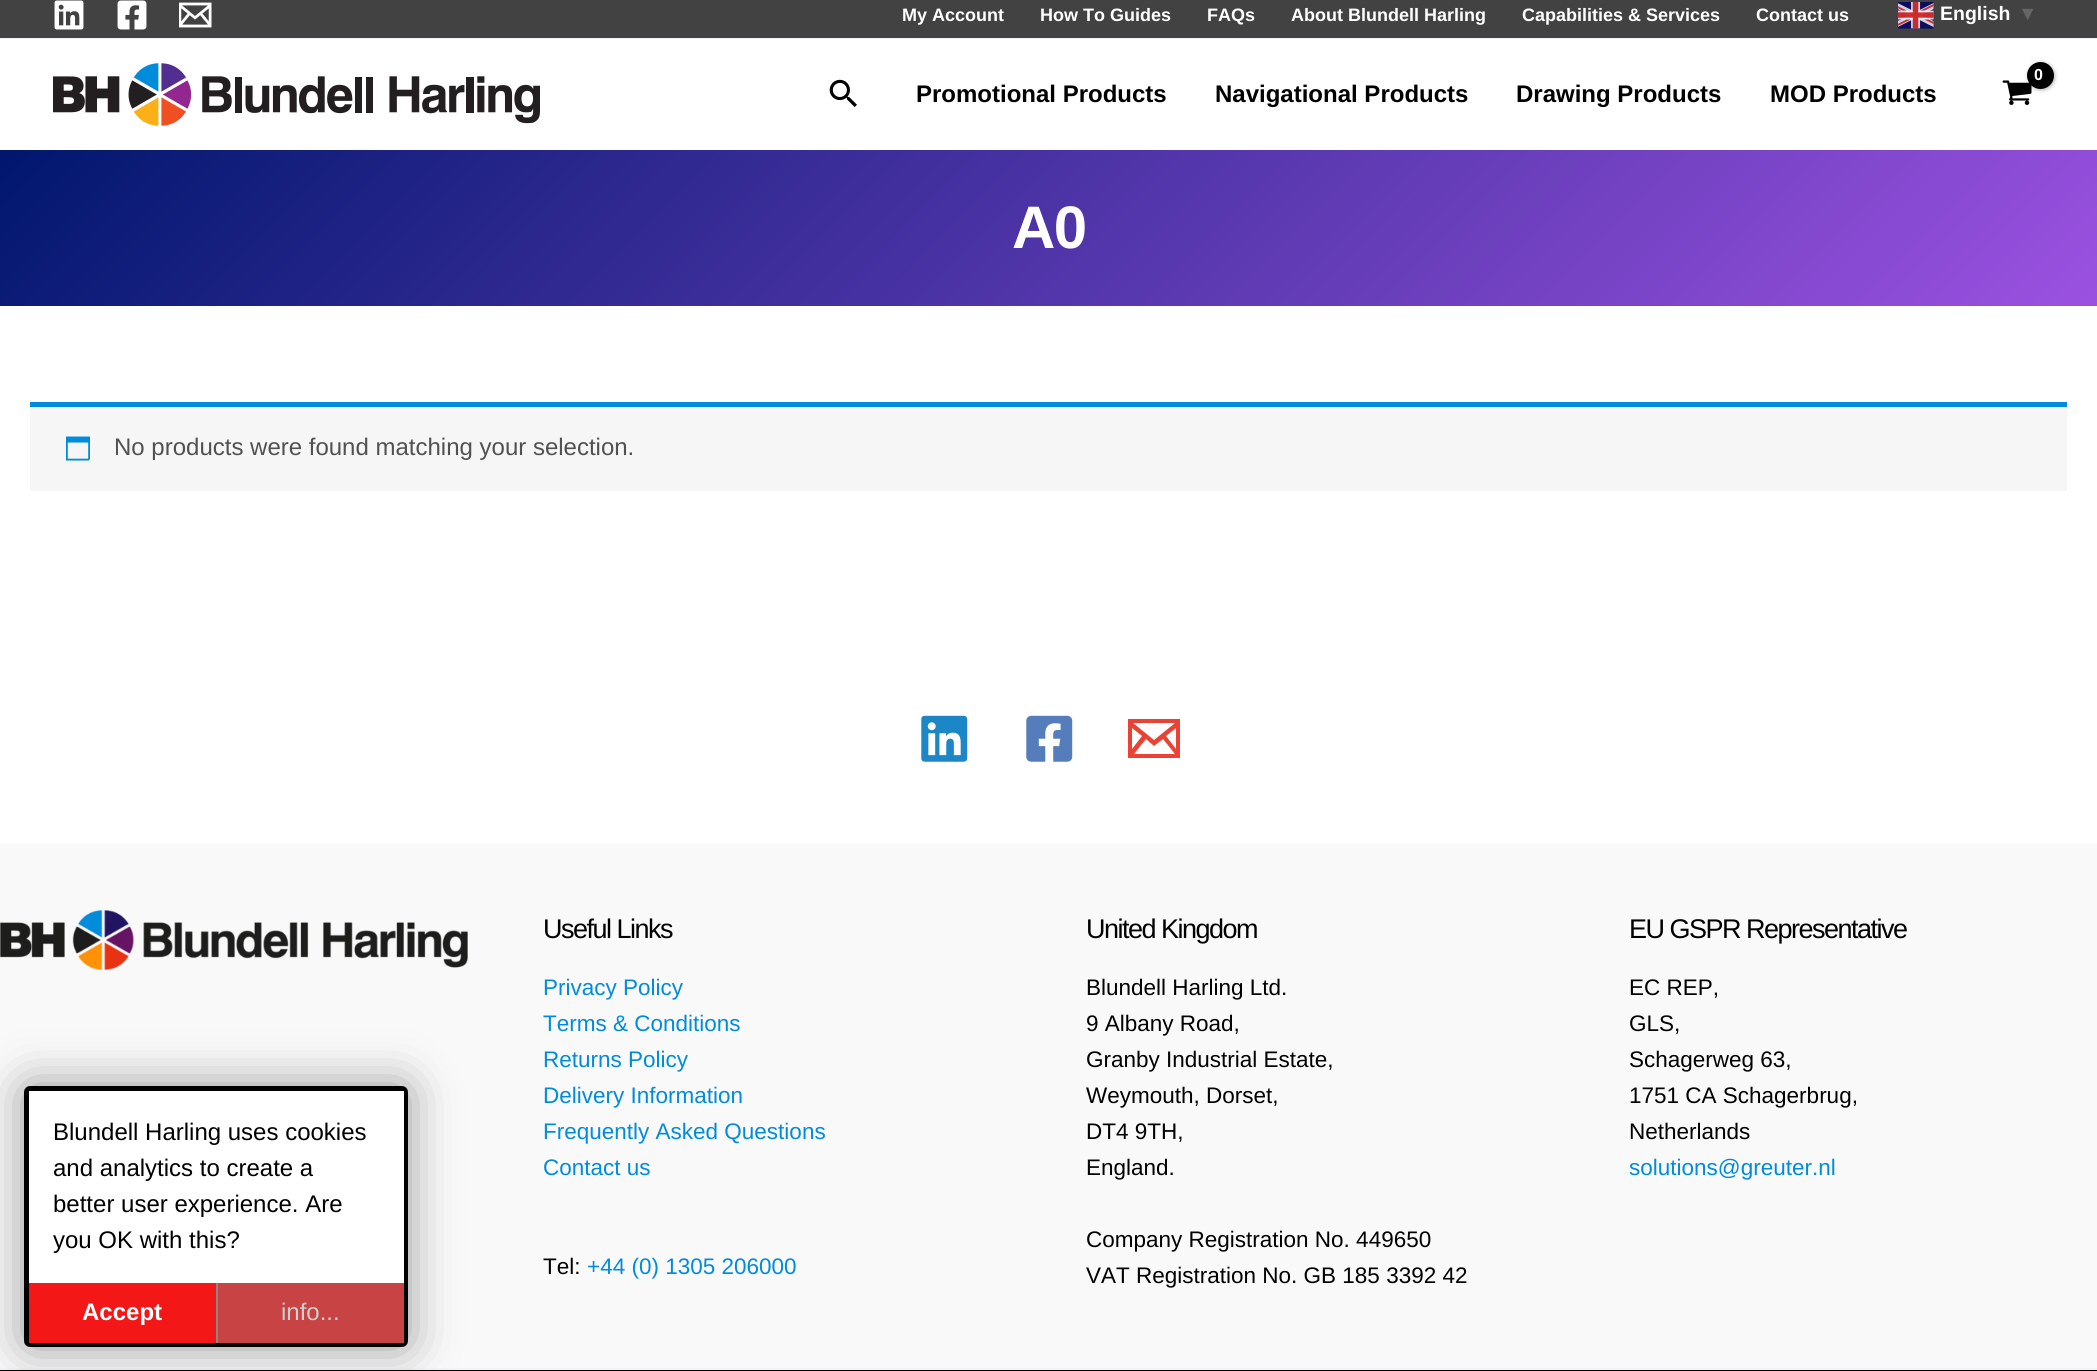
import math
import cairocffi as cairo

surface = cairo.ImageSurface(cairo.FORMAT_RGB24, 2097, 1371)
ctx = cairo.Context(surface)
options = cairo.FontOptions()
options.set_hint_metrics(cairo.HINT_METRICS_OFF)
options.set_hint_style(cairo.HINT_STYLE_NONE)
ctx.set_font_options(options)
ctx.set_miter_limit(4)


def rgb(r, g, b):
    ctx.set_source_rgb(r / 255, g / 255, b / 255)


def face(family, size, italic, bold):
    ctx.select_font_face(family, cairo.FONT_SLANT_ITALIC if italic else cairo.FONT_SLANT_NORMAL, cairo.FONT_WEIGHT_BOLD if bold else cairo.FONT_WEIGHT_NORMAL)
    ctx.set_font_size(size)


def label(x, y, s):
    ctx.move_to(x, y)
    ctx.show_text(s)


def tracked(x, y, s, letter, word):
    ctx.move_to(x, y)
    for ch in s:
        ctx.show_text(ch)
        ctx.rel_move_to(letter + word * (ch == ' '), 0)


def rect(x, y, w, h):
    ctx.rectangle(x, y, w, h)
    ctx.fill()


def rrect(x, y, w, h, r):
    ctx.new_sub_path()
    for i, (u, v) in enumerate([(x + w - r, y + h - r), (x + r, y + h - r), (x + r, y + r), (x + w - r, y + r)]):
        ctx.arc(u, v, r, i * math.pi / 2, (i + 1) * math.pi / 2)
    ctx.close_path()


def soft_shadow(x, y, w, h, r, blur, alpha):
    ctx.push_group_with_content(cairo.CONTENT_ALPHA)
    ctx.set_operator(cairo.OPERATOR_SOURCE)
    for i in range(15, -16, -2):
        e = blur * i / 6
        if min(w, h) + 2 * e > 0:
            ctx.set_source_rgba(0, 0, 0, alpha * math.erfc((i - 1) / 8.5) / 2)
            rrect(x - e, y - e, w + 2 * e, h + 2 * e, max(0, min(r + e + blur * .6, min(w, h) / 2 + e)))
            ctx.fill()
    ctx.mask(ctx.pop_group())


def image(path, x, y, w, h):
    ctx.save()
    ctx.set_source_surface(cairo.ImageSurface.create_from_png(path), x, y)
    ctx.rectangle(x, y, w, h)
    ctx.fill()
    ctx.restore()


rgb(255, 255, 255)
ctx.paint()
rgb(66, 66, 66)
rect(0, 0, 2097, 38)
rgb(242, 245, 247)
rect(0, 38, 2097, 1)
image('image0.png', 54, 0, 30, 30)
image('image1.png', 117, 0, 30, 30)
image('image2.png', 179, 2, 33, 26)
face('Liberation Sans', 18, 0, 1)
rgb(255, 255, 255)
label(902, 21, 'My Account')
label(1040, 21, 'How To Guides')
label(1207, 21, 'FAQs')
label(1291, 21, 'About Blundell Harling')
label(1522, 21, 'Capabilities & Services')
label(1756, 21, 'Contact us')
image('image3.png', 1898, 2, 36, 27)
face('Liberation Sans', 19.5, 0, 1)
label(1940, 20, 'English')
rgb(102, 102, 102)
label(2018, 20, '▼')
image('image4.png', 53, 63, 487, 63)
image('image5.png', 2002, 80, 30, 25)
rgb(0, 0, 0)
soft_shadow(2028, 63, 27, 27, 13.5, 2, 0.3)
rgb(0, 0, 0)
ctx.arc(2040.5, 75.5, 13.5, 0, 2 * math.pi)
ctx.fill()
face('Liberation Sans', 16, 0, 1)
rgb(255, 255, 255)
tracked(2034, 80, '0', -1, 0)
image('image6.png', 829, 79, 28, 28)
face('Liberation Sans', 24, 0, 1)
rgb(0, 0, 0)
label(916, 102, 'Promotional Products')
label(1215, 102, 'Navigational Products')
label(1516, 102, 'Drawing Products')
label(1770, 102, 'MOD Products')
gradient = cairo.LinearGradient(485, -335, 1612, 791)
gradient.add_color_stop_rgba(0, 0, 0.09, 0.431, 1)
gradient.add_color_stop_rgba(1, 0.608, 0.318, 0.878, 1)
ctx.set_source(gradient)
rect(0, 150, 2097, 156)
face('Liberation Sans', 60, 0, 1)
rgb(255, 255, 255)
tracked(1012, 248, 'A0', -1.5, 0)
rgb(247, 246, 247)
rect(30, 407, 2037, 84)
rgb(0, 140, 219)
rect(30, 402, 2037, 5)
image('image7.png', 66, 436, 24, 25)
face('Liberation Sans', 24, 0, 0)
rgb(81, 81, 81)
label(114, 455, 'No products were found matching your selection.')
image('image8.png', 921, 715, 47, 47)
image('image9.png', 1026, 715, 47, 47)
rgb(234, 67, 53)
ctx.new_path()
ctx.move_to(1128, 719)
ctx.line_to(1128, 758)
ctx.line_to(1180, 758)
ctx.line_to(1180, 719)
ctx.close_path()
ctx.move_to(1142, 736)
ctx.line_to(1132, 749)
ctx.line_to(1132, 728)
ctx.close_path()
ctx.move_to(1133, 723)
ctx.line_to(1175, 723)
ctx.line_to(1154, 740)
ctx.close_path()
ctx.move_to(1146, 739)
ctx.line_to(1154, 746)
ctx.line_to(1163, 739)
ctx.line_to(1175, 754)
ctx.line_to(1134, 754)
ctx.close_path()
ctx.move_to(1166, 736)
ctx.line_to(1176, 728)
ctx.line_to(1176, 749)
ctx.close_path()
ctx.fill()
rgb(249, 249, 249)
rect(0, 843, 2097, 525)
image('image10.png', 0, 910, 468, 60)
face('Liberation Sans', 27, 0, 0)
rgb(0, 0, 0)
tracked(543, 938, 'Useful Links', -1.5, 0)
face('Liberation Sans', 22.5, 0, 0)
rgb(0, 140, 219)
label(543, 995, 'Privacy Policy')
label(543, 1031, 'Terms & Conditions')
label(543, 1067, 'Returns Policy')
label(543, 1103, 'Delivery Information')
label(543, 1139, 'Frequently Asked Questions')
label(543, 1175, 'Contact us')
rgb(0, 0, 0)
label(543, 1274, 'Tel:')
rgb(0, 140, 219)
label(587, 1274, '+44 (0) 1305 206000')
face('Liberation Sans', 27, 0, 0)
rgb(0, 0, 0)
tracked(1086, 938, 'United Kingdom', -1.5, 0)
face('Liberation Sans', 22.5, 0, 0)
label(1086, 995, 'Blundell Harling Ltd.')
label(1086, 1031, '9 Albany Road,')
label(1086, 1067, 'Granby Industrial Estate,')
label(1086, 1103, 'Weymouth, Dorset,')
label(1086, 1139, 'DT4 9TH,')
label(1086, 1175, 'England.')
label(1086, 1247, 'Company Registration No. 449650')
label(1086, 1283, 'VAT Registration No. GB 185 3392 42')
face('Liberation Sans', 27, 0, 0)
tracked(1629, 938, 'EU GSPR Representative', -1.5, 0)
face('Liberation Sans', 22.5, 0, 0)
label(1629, 995, 'EC REP,')
label(1629, 1031, 'GLS,')
label(1629, 1067, 'Schagerweg 63,')
label(1629, 1103, '1751 CA Schagerbrug,')
label(1629, 1139, 'Netherlands')
rgb(0, 140, 219)
label(1629, 1175, 'solutions@greuter.nl')
rgb(0, 0, 0)
rect(0, 1370, 2097, 1)
rgb(242, 245, 247)
rect(0, 1368, 2097, 2)
rgb(0, 0, 0)
soft_shadow(24, 1086, 384, 261, 6, 24, 0.4)
rrect(26.5, 1088.5, 379, 256, 3.5)
rgb(0, 0, 0)
ctx.set_line_width(5)
ctx.stroke()
rgb(255, 255, 255)
rect(29, 1091, 375, 192)
face('Liberation Sans', 24, 0, 0)
rgb(0, 0, 0)
label(53, 1140, 'Blundell Harling uses cookies')
label(53, 1176, 'and analytics to create a')
label(53, 1212, 'better user experience. Are')
label(53, 1248, 'you OK with this?')
rgb(136, 136, 136)
rect(216, 1283, 2, 60)
rgb(243, 23, 23)
rect(29, 1283, 187, 60)
face('Liberation Sans', 24, 0, 1)
rgb(255, 255, 255)
label(82, 1320, 'Accept')
rgb(200, 68, 68)
rect(218, 1283, 186, 60)
face('Liberation Sans', 24, 0, 0)
rgb(207, 207, 207)
label(281, 1320, 'info...')
surface.write_to_png('render.png')
